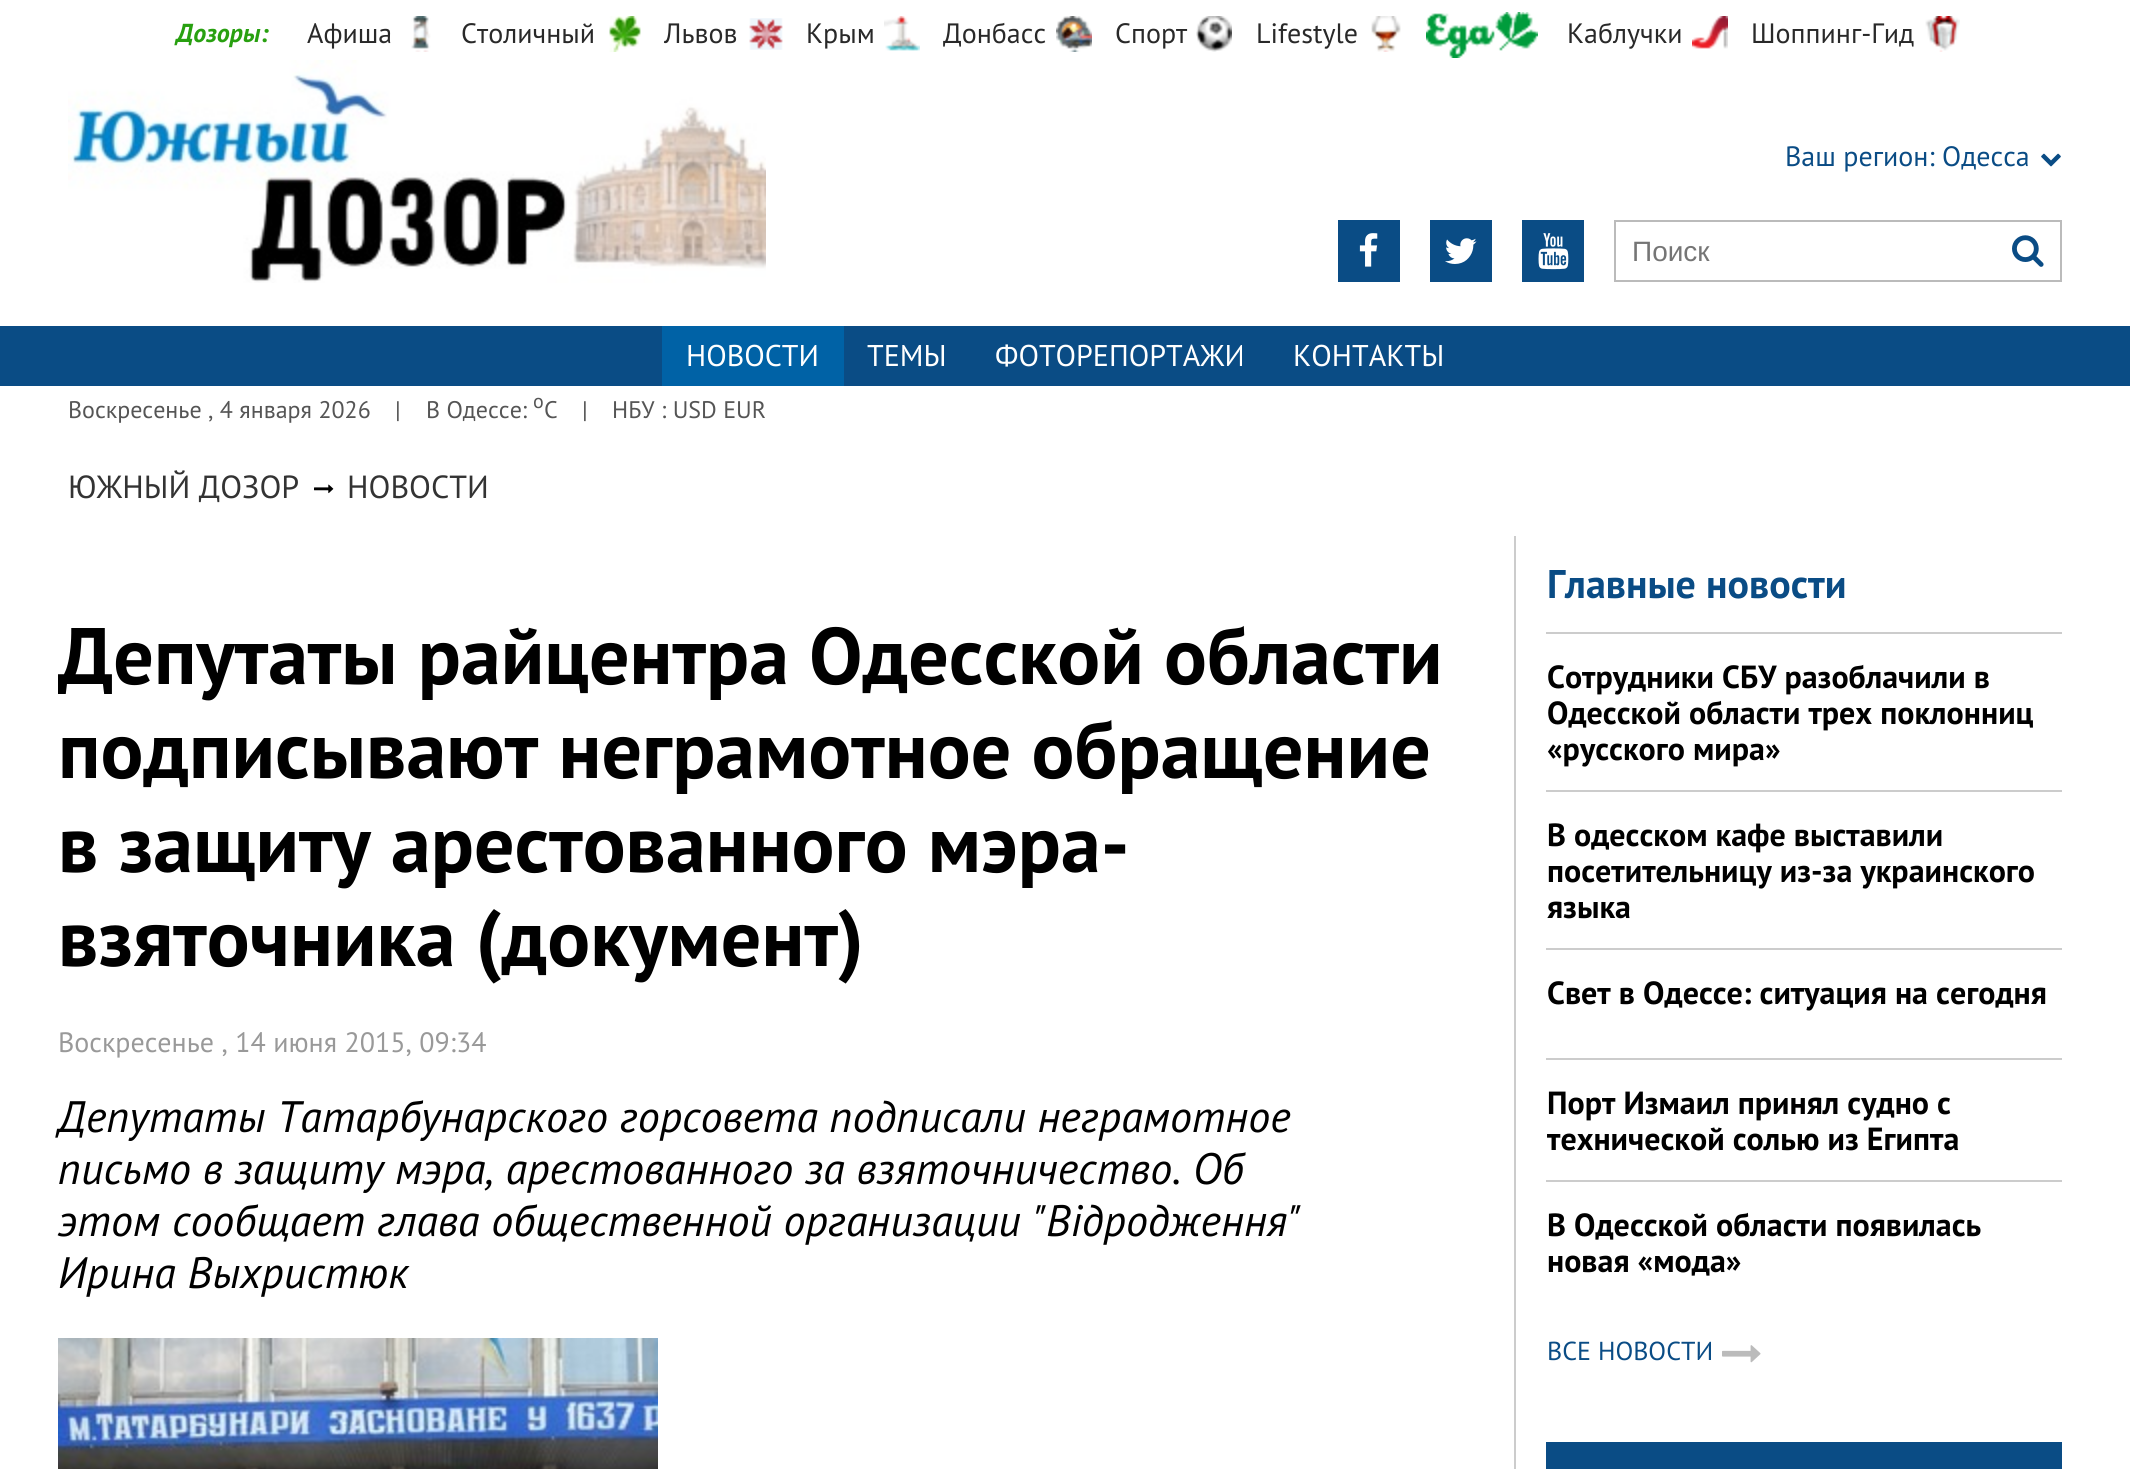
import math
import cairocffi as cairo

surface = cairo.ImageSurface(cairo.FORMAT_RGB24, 2130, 1469)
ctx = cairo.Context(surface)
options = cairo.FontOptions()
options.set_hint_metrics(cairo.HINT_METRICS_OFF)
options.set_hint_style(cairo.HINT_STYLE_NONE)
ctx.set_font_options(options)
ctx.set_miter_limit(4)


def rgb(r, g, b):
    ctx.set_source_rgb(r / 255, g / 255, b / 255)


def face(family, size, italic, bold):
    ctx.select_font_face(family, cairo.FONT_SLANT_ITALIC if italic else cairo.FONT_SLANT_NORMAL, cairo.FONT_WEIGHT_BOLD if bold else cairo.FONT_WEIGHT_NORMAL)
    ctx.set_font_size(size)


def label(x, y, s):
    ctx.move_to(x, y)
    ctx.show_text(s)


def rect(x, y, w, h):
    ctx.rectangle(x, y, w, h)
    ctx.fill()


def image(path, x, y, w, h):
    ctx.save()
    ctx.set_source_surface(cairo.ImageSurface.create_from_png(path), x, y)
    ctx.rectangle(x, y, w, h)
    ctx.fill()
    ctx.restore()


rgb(255, 255, 255)
ctx.paint()
face('PT Sans', 26, 1, 1)
rgb(40, 160, 16)
label(176, 42, 'Дозоры:')
face('PT Sans', 28, 0, 0)
rgb(41, 41, 41)
label(307, 43, 'Афиша')
image('image0.png', 411, 16, 20, 36)
label(461, 43, 'Столичный')
image('image1.png', 609, 16, 32, 36)
label(664, 43, 'Львов')
image('image2.png', 749, 18, 34, 32)
label(806, 43, 'Крым')
image('image3.png', 884, 16, 36, 35)
label(943, 43, 'Донбасс')
image('image4.png', 1056, 16, 36, 36)
label(1115, 43, 'Спорт')
image('image5.png', 1196, 16, 36, 36)
label(1256, 43, 'Lifestyle')
image('image6.png', 1371, 16, 30, 36)
image('image7.png', 1426, 12, 112, 46)
label(1567, 43, 'Каблучки')
image('image8.png', 1692, 16, 36, 33)
label(1751, 43, 'Шоппинг-Гид')
image('image9.png', 1925, 16, 35, 36)
image('image10.png', 68, 60, 698, 223)
rgb(10, 76, 133)
label(1785, 166, 'Ваш регион: Одесса')
image('image11.png', 2041, 153, 20, 14)
rect(1338, 220, 62, 62)
image('image12.png', 1359, 233, 19, 34)
rect(1430, 220, 62, 62)
image('image13.png', 1445, 238, 32, 26)
rect(1522, 220, 62, 62)
image('image14.png', 1538, 233, 31, 37)
ctx.rectangle(1615, 221, 446, 60)
rgb(187, 187, 187)
ctx.stroke()
face('Liberation Sans', 28, 0, 0)
rgb(117, 117, 117)
label(1632, 261, 'Поиск')
image('image15.png', 2012, 235, 32, 32)
rgb(10, 76, 133)
rect(0, 326, 2130, 60)
rgb(0, 98, 166)
rect(662, 326, 182, 60)
face('PT Sans', 30, 0, 0)
rgb(255, 255, 255)
label(686, 366, 'НОВОСТИ')
label(867, 366, 'ТЕМЫ')
label(995, 366, 'ФОТОРЕПОРТАЖИ')
label(1293, 366, 'КОНТАКТЫ')
face('PT Sans', 24, 0, 0)
rgb(85, 85, 85)
label(68, 418, 'Воскресенье , 4 января 2026')
label(395, 418, '|')
label(426, 418, 'В Одессе:')
face('PT Sans', 20, 0, 0)
label(533, 408, 'о')
face('PT Sans', 24, 0, 0)
label(544, 418, 'С')
label(582, 418, '|')
label(612, 418, 'НБУ : USD EUR')
face('PT Sans', 32, 0, 0)
rgb(51, 51, 51)
label(68, 498, 'ЮЖНЫЙ ДОЗОР')
image('image16.png', 314, 484, 20, 10)
label(347, 498, 'НОВОСТИ')
rgb(204, 204, 204)
rect(1514, 536, 2, 933)
face('PT Sans', 80, 0, 1)
rgb(0, 0, 0)
label(58, 684, 'Депутаты райцентра Одесской области')
label(58, 778, 'подписывают неграмотное обращение')
label(58, 872, 'в защиту арестованного мэра-')
label(58, 966, 'взяточника (документ)')
face('PT Sans', 28, 0, 0)
rgb(153, 153, 153)
label(58, 1052, 'Воскресенье , 14 июня 2015, 09:34')
face('PT Sans', 44, 1, 0)
rgb(0, 0, 0)
label(58, 1132, 'Депутаты Татарбунарского горсовета подписали неграмотное')
label(58, 1184, 'письмо в защиту мэра, арестованного за взяточничество. Об')
label(58, 1236, 'этом сообщает глава общественной организации "Вiдродження"')
label(58, 1288, 'Ирина Выхристюк')
image('image17.png', 58, 1338, 600, 131)
face('PT Sans', 40, 0, 1)
rgb(10, 76, 133)
label(1547, 598, 'Главные новости')
rgb(204, 204, 204)
rect(1546, 632, 516, 2)
face('PT Sans', 32, 0, 1)
rgb(0, 0, 0)
label(1547, 688, 'Сотрудники СБУ разоблачили в')
label(1547, 724, 'Одесской области трех поклонниц')
label(1547, 760, '«русского мира»')
rgb(204, 204, 204)
rect(1546, 790, 516, 2)
rgb(0, 0, 0)
label(1547, 846, 'В одесском кафе выставили')
label(1547, 882, 'посетительницу из-за украинского')
label(1547, 918, 'языка')
rgb(204, 204, 204)
rect(1546, 948, 516, 2)
rgb(0, 0, 0)
label(1547, 1004, 'Свет в Одессе: ситуация на сегодня')
rgb(204, 204, 204)
rect(1546, 1058, 516, 2)
rgb(0, 0, 0)
label(1547, 1114, 'Порт Измаил принял судно с')
label(1547, 1150, 'технической солью из Египта')
rgb(204, 204, 204)
rect(1546, 1180, 516, 2)
rgb(0, 0, 0)
label(1547, 1236, 'В Одесской области появилась')
label(1547, 1272, 'новая «мода»')
face('PT Sans', 26, 0, 0)
rgb(10, 76, 133)
label(1547, 1360, 'ВСЕ НОВОСТИ')
image('image18.png', 1722, 1345, 39, 18)
rect(1546, 1442, 516, 27)
surface.write_to_png('render.png')
